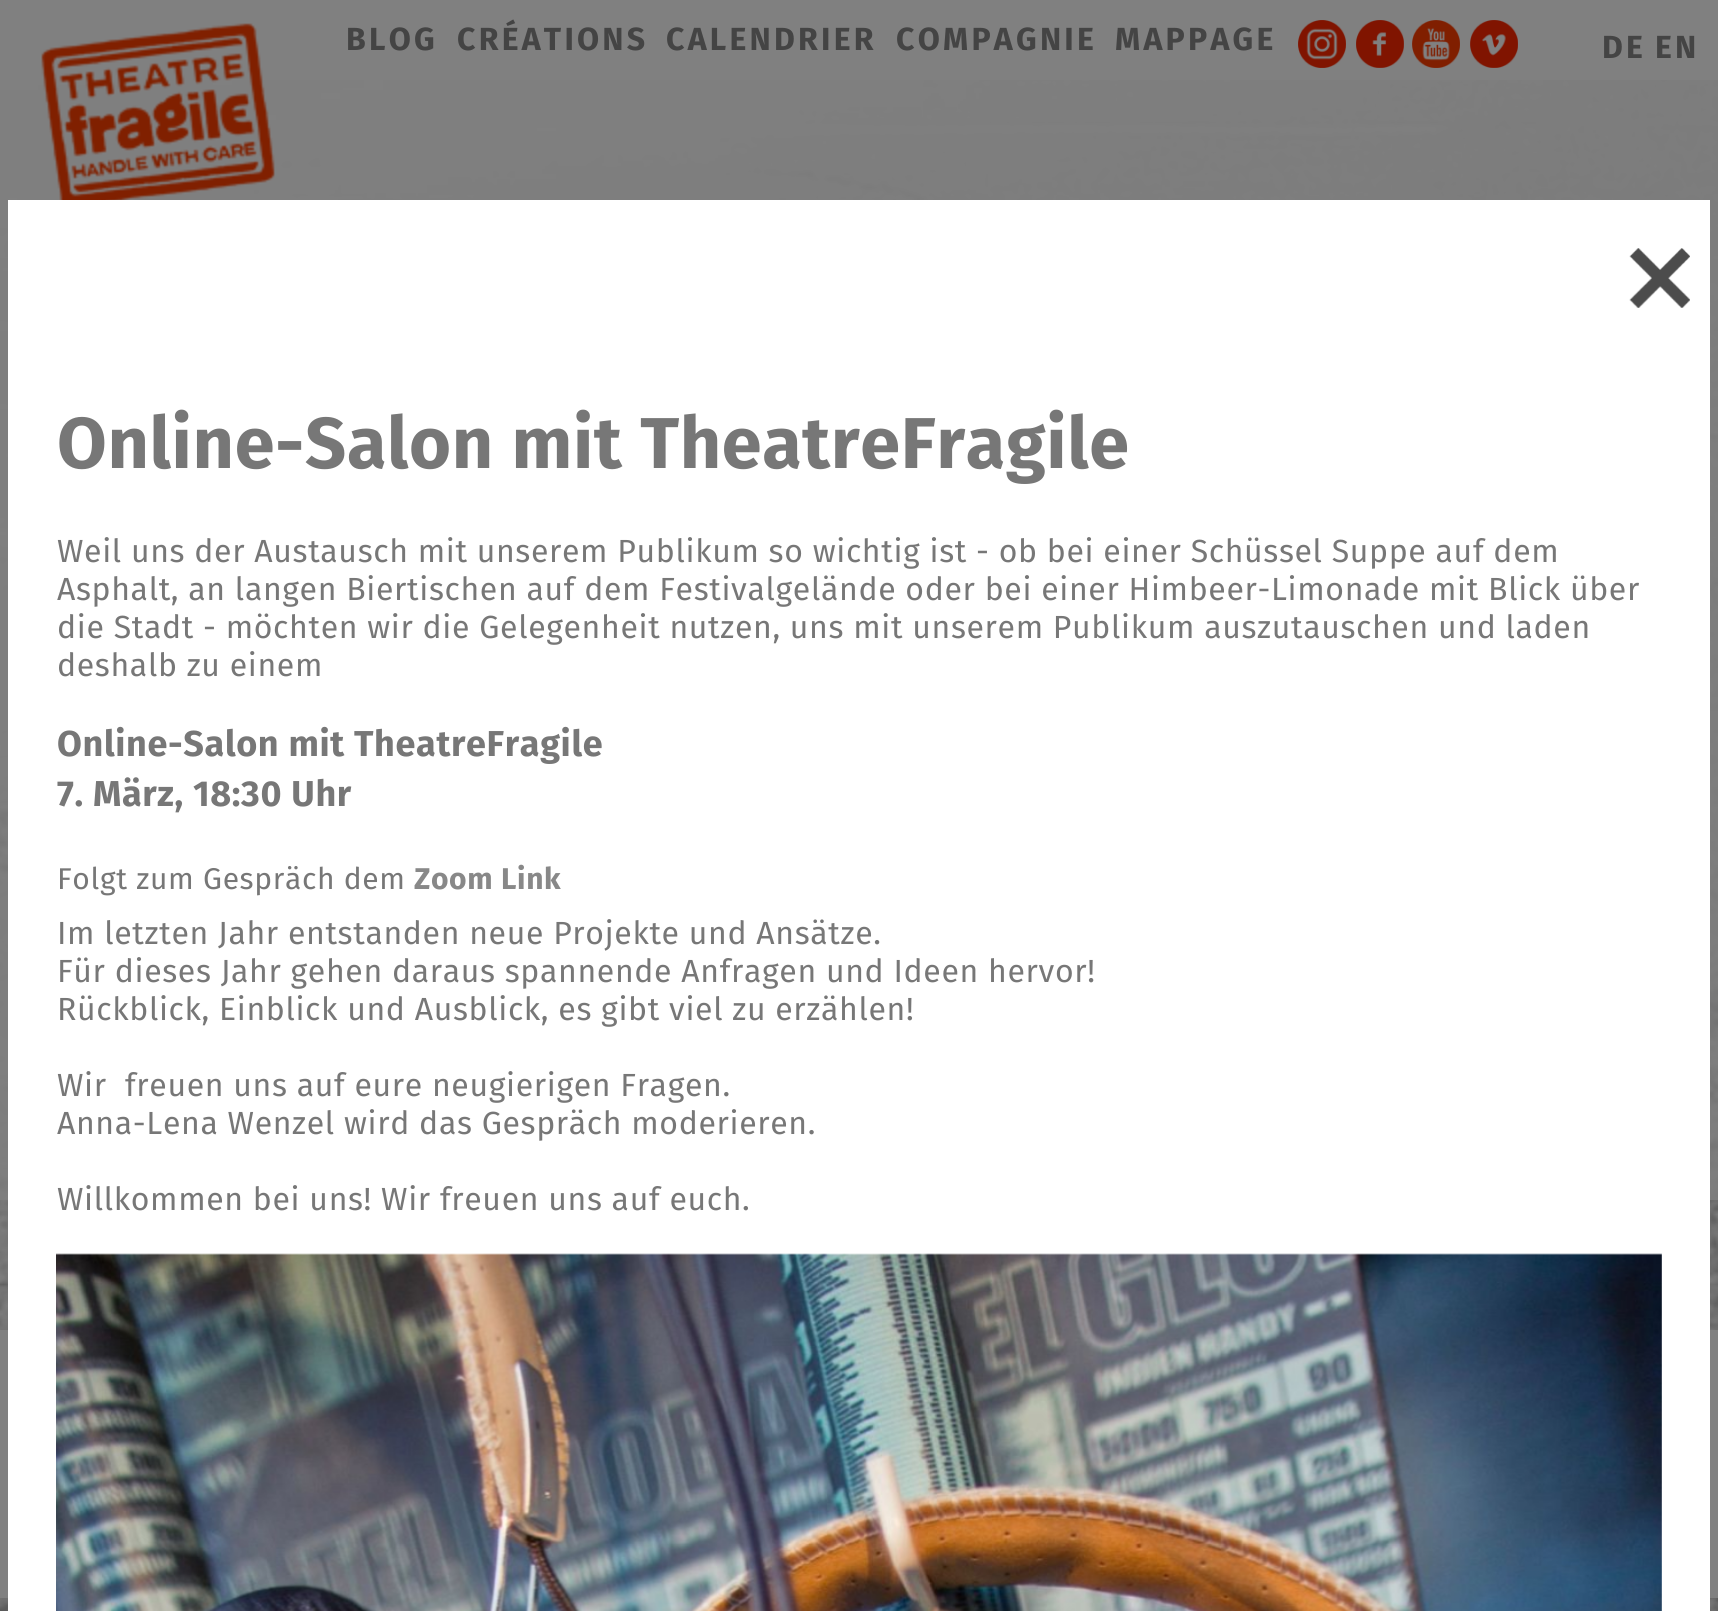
import math
import cairocffi as cairo

surface = cairo.ImageSurface(cairo.FORMAT_RGB24, 1718, 1611)
ctx = cairo.Context(surface)
options = cairo.FontOptions()
options.set_hint_metrics(cairo.HINT_METRICS_OFF)
options.set_hint_style(cairo.HINT_STYLE_NONE)
ctx.set_font_options(options)
ctx.set_miter_limit(4)


def rgb(r, g, b):
    ctx.set_source_rgb(r / 255, g / 255, b / 255)


def face(family, size, italic, bold):
    ctx.select_font_face(family, cairo.FONT_SLANT_ITALIC if italic else cairo.FONT_SLANT_NORMAL, cairo.FONT_WEIGHT_BOLD if bold else cairo.FONT_WEIGHT_NORMAL)
    ctx.set_font_size(size)


def tracked(x, y, s, letter, word):
    ctx.move_to(x, y)
    for ch in s:
        ctx.show_text(ch)
        ctx.rel_move_to(letter + word * (ch == ' '), 0)


def rect(x, y, w, h):
    ctx.rectangle(x, y, w, h)
    ctx.fill()


def image(path, x, y, w, h):
    ctx.save()
    ctx.set_source_surface(cairo.ImageSurface.create_from_png(path), x, y)
    ctx.rectangle(x, y, w, h)
    ctx.fill()
    ctx.restore()


rgb(255, 255, 255)
ctx.paint()
image('image0.png', 0, 80, 1718, 1531)
rgb(128, 128, 128)
rect(0, 0, 1718, 80)
ctx.set_source_rgba(0.502, 0.502, 0.502, 0.8)
rect(0, 80, 1718, 1120)
image('image1.png', 41, 23, 234, 177)
face('Fira Sans', 32, 0, 1)
rgb(68, 68, 68)
tracked(346, 50, 'BLOG', 3.25, 0)
tracked(457, 50, 'CRÉATIONS', 3.25, 0)
tracked(666, 50, 'CALENDRIER', 3.25, 0)
tracked(896, 50, 'COMPAGNIE', 3.25, 0)
tracked(1115, 50, 'MAPPAGE', 3.25, 0)
image('image2.png', 1298, 20, 48, 48)
image('image3.png', 1356, 20, 48, 48)
image('image4.png', 1412, 20, 48, 48)
image('image5.png', 1470, 20, 48, 48)
tracked(1602, 58, 'DE', 3.25, 0)
tracked(1655, 58, 'EN', 3.25, 0)
rgb(128, 128, 128)
rect(0, 1330, 1718, 268)
rgb(255, 255, 255)
rect(8, 200, 1702, 1411)
image('image6.png', 1629, 248, 61, 60)
face('Fira Sans', 72, 0, 1)
rgb(119, 119, 119)
tracked(57, 468, 'Online-Salon mit TheatreFragile', 0.64, 0)
face('Fira Sans', 32, 0, 0)
tracked(57, 562, 'Weil uns der Austausch mit unserem Publikum so wichtig ist - ob bei einer Schüssel Suppe auf dem', 0.64, 0)
tracked(57, 600, 'Asphalt, an langen Biertischen auf dem Festivalgelände oder bei einer Himbeer-Limonade mit Blick über', 0.64, 0)
tracked(57, 638, 'die Stadt - möchten wir die Gelegenheit nutzen, uns mit unserem Publikum auszutauschen und laden', 0.64, 0)
tracked(57, 676, 'deshalb zu einem', 0.64, 0)
face('Fira Sans', 36, 0, 1)
tracked(57, 756, 'Online-Salon mit TheatreFragile', 0.64, 0)
tracked(57, 806, '7. März, 18:30 Uhr', 0.64, 0)
face('Fira Sans', 30, 0, 0)
tracked(57, 889, 'Folgt zum Gespräch dem', 0.64, 0)
face('Fira Sans', 30, 0, 1)
rgb(136, 136, 136)
tracked(414, 889, 'Zoom Link', 0.64, 0)
face('Fira Sans', 32, 0, 0)
rgb(119, 119, 119)
tracked(57, 944, 'Im letzten Jahr entstanden neue Projekte und Ansätze.', 0.64, 0)
tracked(57, 982, 'Für dieses Jahr gehen daraus spannende Anfragen und Ideen hervor!', 0.64, 0)
tracked(57, 1020, 'Rückblick, Einblick und Ausblick, es gibt viel zu erzählen!', 0.64, 0)
tracked(57, 1096, 'Wir  freuen uns auf eure neugierigen Fragen.', 0.64, 0)
tracked(57, 1134, 'Anna-Lena Wenzel wird das Gespräch moderieren.', 0.64, 0)
tracked(57, 1210, 'Willkommen bei uns! Wir freuen uns auf euch.', 0.64, 0)
image('image7.png', 56, 1253, 1606, 358)
surface.write_to_png('render.png')
